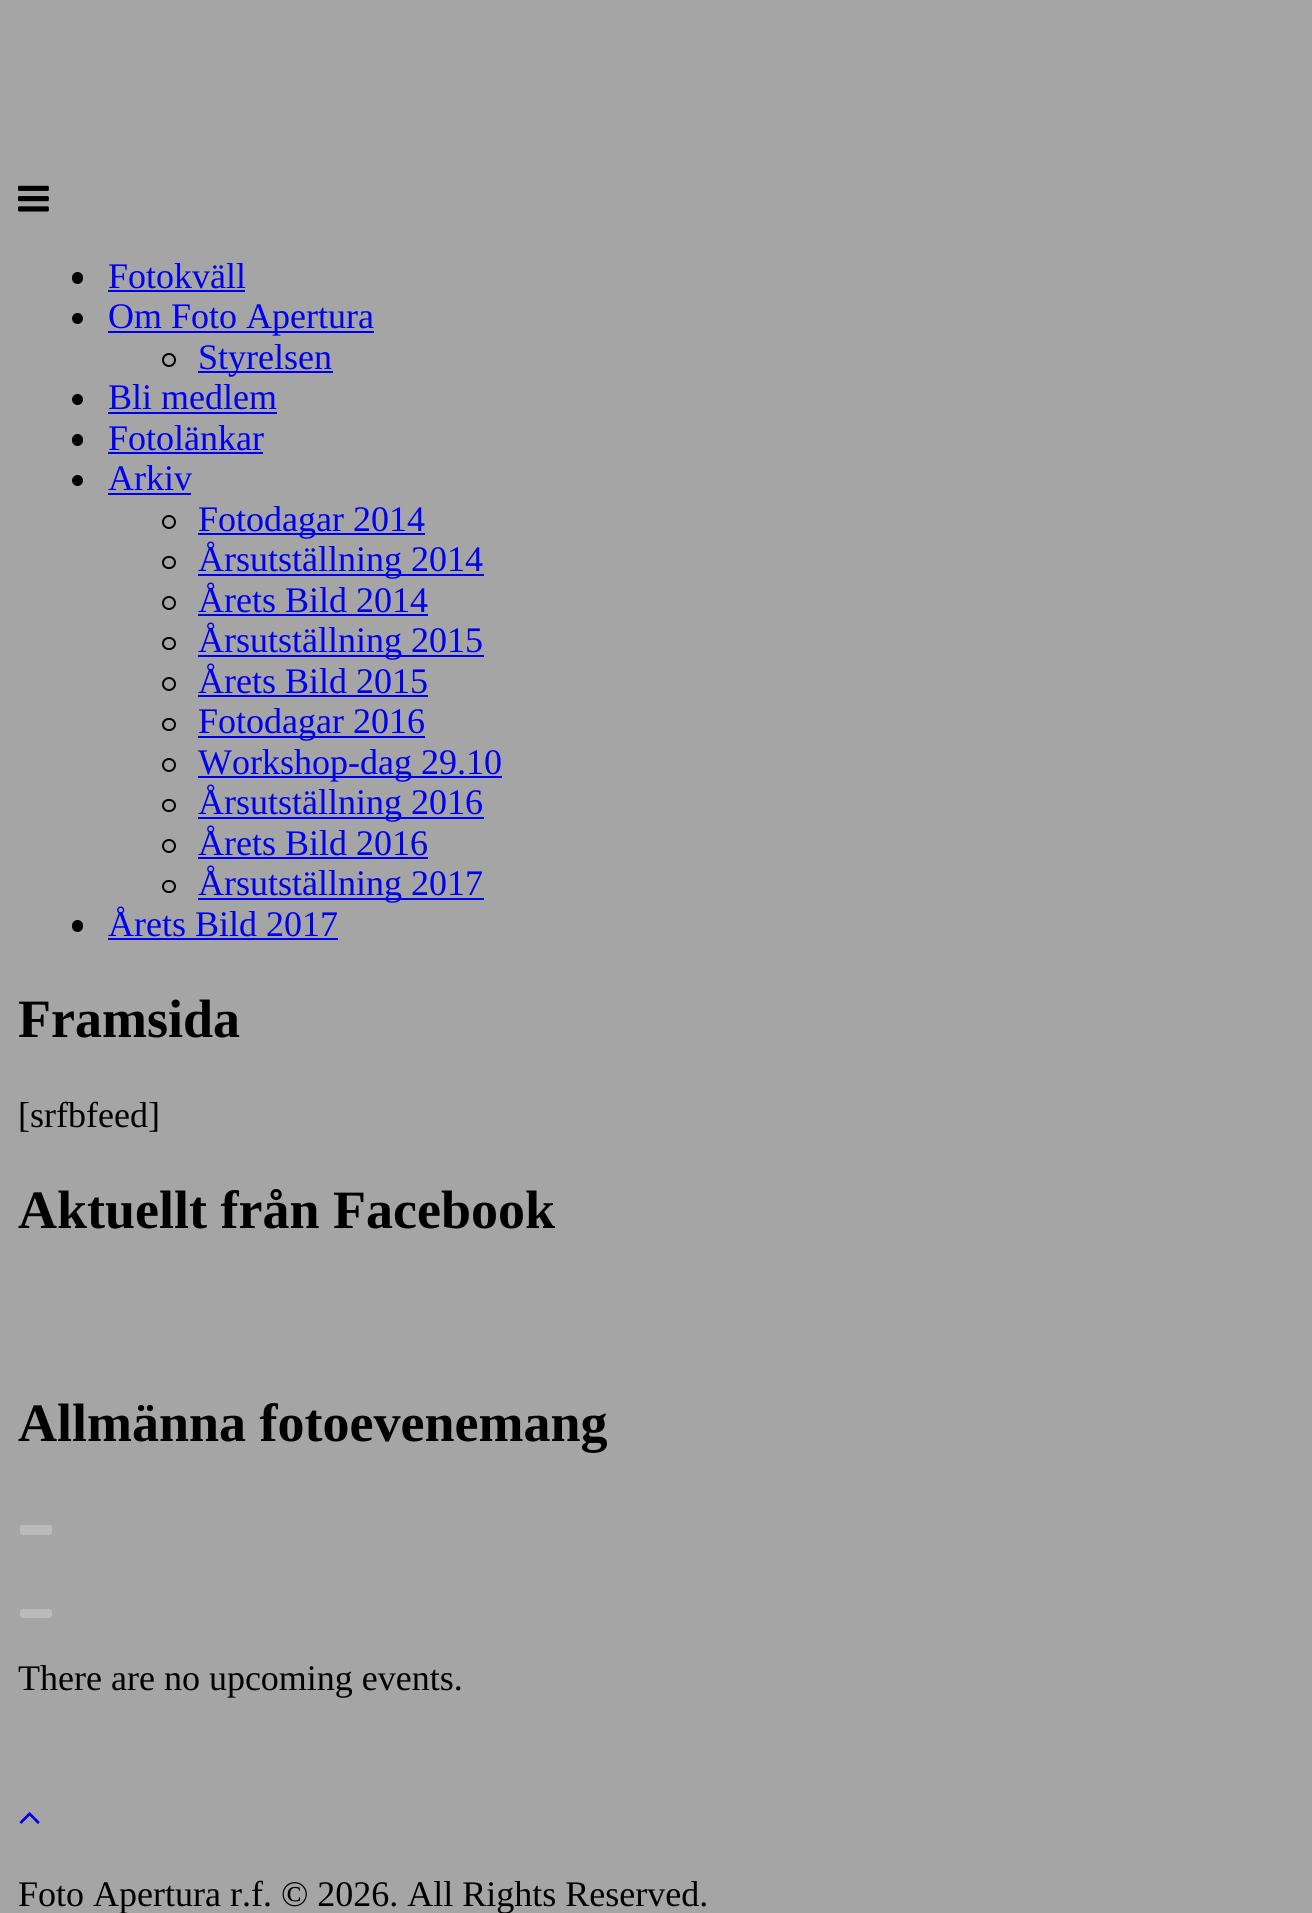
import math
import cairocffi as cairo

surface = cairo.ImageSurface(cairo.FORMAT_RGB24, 1312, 1913)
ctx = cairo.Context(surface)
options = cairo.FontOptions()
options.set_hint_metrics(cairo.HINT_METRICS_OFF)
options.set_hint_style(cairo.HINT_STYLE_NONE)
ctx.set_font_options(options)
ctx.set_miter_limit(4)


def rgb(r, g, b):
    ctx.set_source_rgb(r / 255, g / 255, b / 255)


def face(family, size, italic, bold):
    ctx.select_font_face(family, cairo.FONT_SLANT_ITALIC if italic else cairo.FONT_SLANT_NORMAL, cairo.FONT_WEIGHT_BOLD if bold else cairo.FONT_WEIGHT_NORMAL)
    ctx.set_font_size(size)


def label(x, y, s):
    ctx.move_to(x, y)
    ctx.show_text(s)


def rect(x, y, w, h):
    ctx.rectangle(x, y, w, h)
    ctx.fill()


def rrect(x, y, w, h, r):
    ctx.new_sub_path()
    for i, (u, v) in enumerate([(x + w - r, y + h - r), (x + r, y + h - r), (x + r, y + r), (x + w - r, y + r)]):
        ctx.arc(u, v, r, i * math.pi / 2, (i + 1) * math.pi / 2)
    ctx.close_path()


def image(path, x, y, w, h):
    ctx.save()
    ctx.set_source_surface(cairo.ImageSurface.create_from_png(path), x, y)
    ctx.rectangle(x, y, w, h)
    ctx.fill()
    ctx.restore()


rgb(165, 165, 165)
ctx.paint()
image('image0.png', 18, 185, 31, 27)
rgb(0, 0, 0)
rrect(72, 272, 11, 12, 5.5)
ctx.fill()
face('Liberation Serif', 36, 0, 0)
rgb(0, 0, 238)
label(108, 288, 'Fotokväll')
rect(108, 290, 137, 2)
rgb(0, 0, 0)
ctx.new_path()
ctx.arc(77.5, 318.5, 5.5, 0, 2 * math.pi)
ctx.fill()
rgb(0, 0, 238)
rect(108, 331, 266, 2)
label(108, 328, 'Om Foto Apertura')
ctx.new_path()
ctx.arc(169, 360, 6, 0, 2 * math.pi)
rgb(0, 0, 0)
ctx.stroke()
rgb(0, 0, 238)
rect(198, 371, 135, 2)
label(198, 369, 'Styrelsen')
rgb(0, 0, 0)
ctx.new_path()
ctx.arc(77.5, 399.5, 5.5, 0, 2 * math.pi)
ctx.fill()
rgb(0, 0, 238)
label(108, 409, 'Bli medlem')
rect(108, 412, 169, 2)
rgb(0, 0, 0)
rrect(72, 434, 11, 12, 5.5)
ctx.fill()
rgb(0, 0, 238)
label(108, 450, 'Fotolänkar')
rect(108, 452, 155, 2)
rgb(0, 0, 0)
ctx.new_path()
ctx.arc(77.5, 480.5, 5.5, 0, 2 * math.pi)
ctx.fill()
rgb(0, 0, 238)
label(108, 490, 'Arkiv')
rect(108, 493, 83, 2)
ctx.new_path()
ctx.arc(169, 522, 6, 0, 2 * math.pi)
rgb(0, 0, 0)
ctx.stroke()
rgb(0, 0, 238)
rect(198, 533, 227, 2)
label(198, 531, 'Fotodagar 2014')
rrect(163, 557, 12, 11, 5.5)
rgb(0, 0, 0)
ctx.stroke()
rgb(0, 0, 238)
rect(198, 574, 286, 2)
label(198, 571, 'Årsutställning 2014')
ctx.new_path()
ctx.arc(169, 603, 6, 0, 2 * math.pi)
rgb(0, 0, 0)
ctx.stroke()
rgb(0, 0, 238)
label(198, 612, 'Årets Bild 2014')
rect(198, 614, 230, 2)
rrect(163, 638, 12, 11, 5.5)
rgb(0, 0, 0)
ctx.stroke()
rgb(0, 0, 238)
rect(198, 655, 286, 2)
label(198, 652, 'Årsutställning 2015')
ctx.new_path()
ctx.arc(169, 684, 6, 0, 2 * math.pi)
rgb(0, 0, 0)
ctx.stroke()
rgb(0, 0, 238)
label(198, 693, 'Årets Bild 2015')
rect(198, 695, 230, 2)
rrect(163, 719, 12, 11, 5.5)
rgb(0, 0, 0)
ctx.stroke()
rgb(0, 0, 238)
rect(198, 736, 227, 2)
label(198, 733, 'Fotodagar 2016')
ctx.new_path()
ctx.arc(169, 765, 6, 0, 2 * math.pi)
rgb(0, 0, 0)
ctx.stroke()
rgb(0, 0, 238)
rect(198, 776, 304, 2)
label(198, 774, 'Workshop-dag 29.10')
rrect(163, 800, 12, 11, 5.5)
rgb(0, 0, 0)
ctx.stroke()
rgb(0, 0, 238)
rect(198, 817, 286, 2)
label(198, 814, 'Årsutställning 2016')
ctx.new_path()
ctx.arc(169, 846, 6, 0, 2 * math.pi)
rgb(0, 0, 0)
ctx.stroke()
rgb(0, 0, 238)
label(198, 855, 'Årets Bild 2016')
rect(198, 857, 230, 2)
rrect(163, 881, 12, 11, 5.5)
rgb(0, 0, 0)
ctx.stroke()
rgb(0, 0, 238)
rect(198, 898, 286, 2)
label(198, 895, 'Årsutställning 2017')
rgb(0, 0, 0)
rrect(72, 920, 11, 12, 5.5)
ctx.fill()
rgb(0, 0, 238)
label(108, 936, 'Årets Bild 2017')
rect(108, 938, 230, 2)
face('Liberation Serif', 54, 0, 1)
rgb(0, 0, 0)
label(18, 1037, 'Framsida')
face('Liberation Serif', 36, 0, 0)
label(18, 1127, '[srfbfeed]')
face('Liberation Serif', 54, 0, 1)
label(18, 1228, 'Aktuellt från Facebook')
label(18, 1441, 'Allmänna fotoevenemang')
rgb(187, 187, 187)
rrect(18, 1523, 36, 14, 5)
ctx.fill()
rrect(19, 1524, 34, 12, 4)
ctx.set_source_rgba(0.463, 0.463, 0.463, 0.3)
ctx.stroke()
rgb(187, 187, 187)
rrect(18, 1607, 36, 13, 5)
ctx.fill()
rrect(19, 1608, 34, 11, 4)
ctx.set_source_rgba(0.463, 0.463, 0.463, 0.3)
ctx.stroke()
face('Liberation Serif', 36, 0, 0)
rgb(0, 0, 0)
label(18, 1690, 'There are no upcoming events.')
image('image1.png', 19, 1812, 21, 12)
label(18, 1906, 'Foto Apertura r.f. © 2026. All Rights Reserved.')
surface.write_to_png('render.png')
